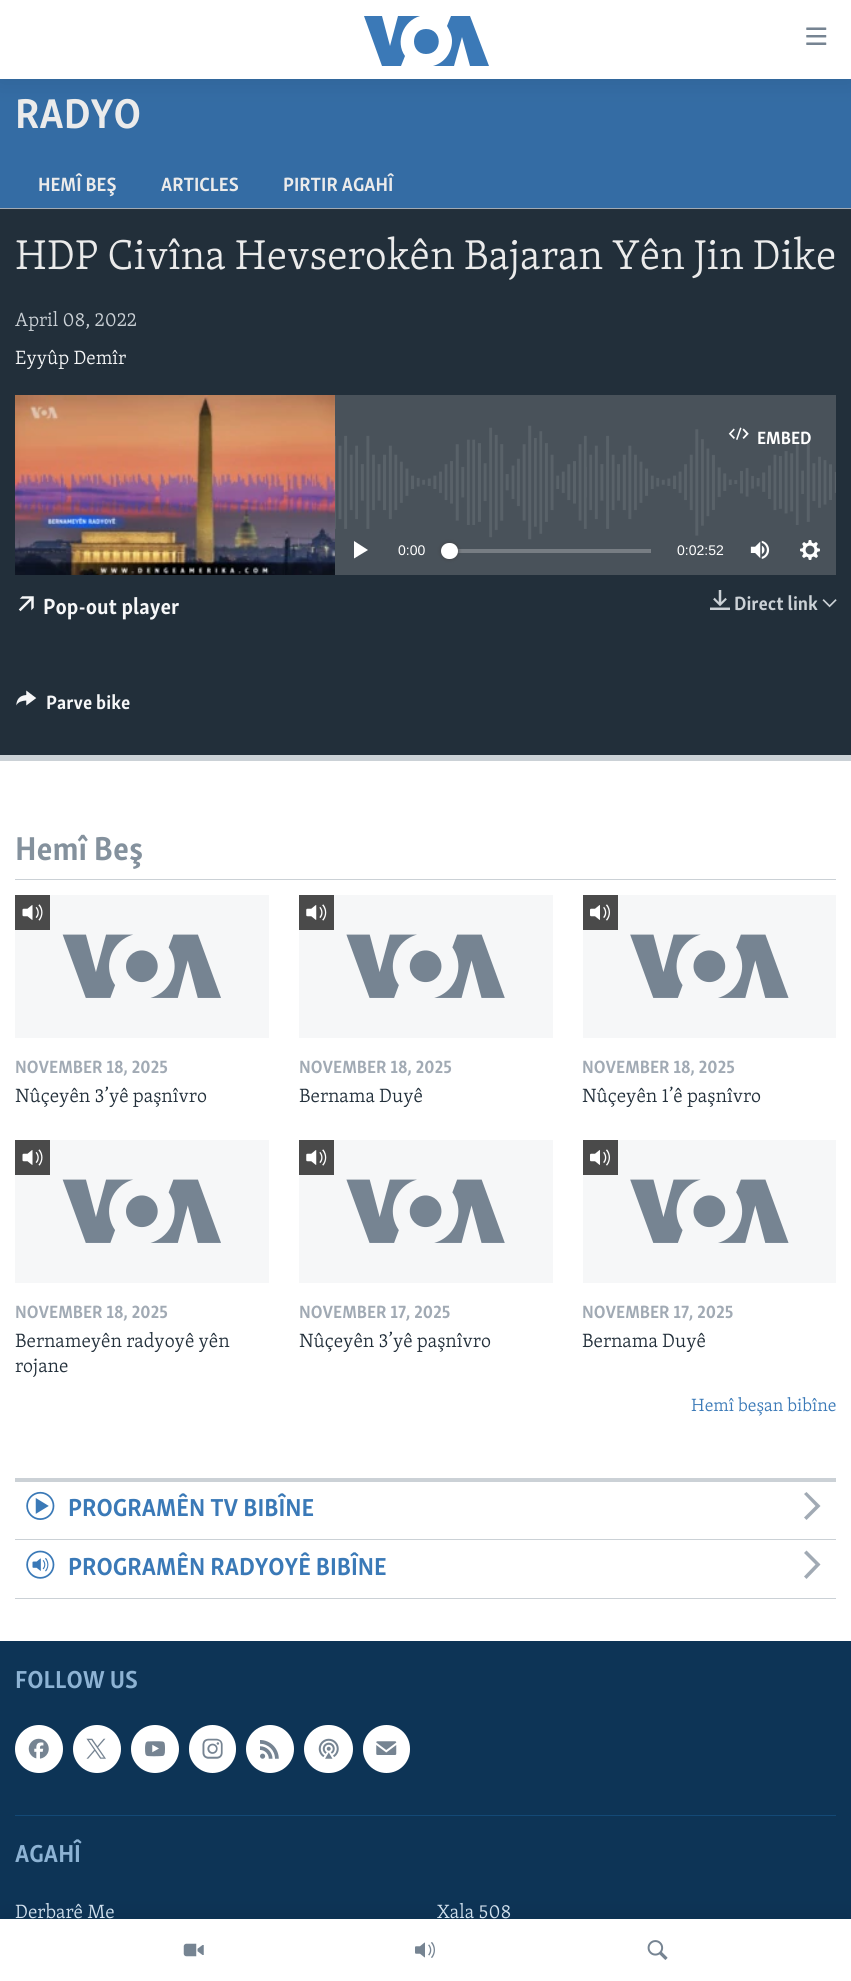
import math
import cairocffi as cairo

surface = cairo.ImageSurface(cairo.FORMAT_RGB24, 851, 1981)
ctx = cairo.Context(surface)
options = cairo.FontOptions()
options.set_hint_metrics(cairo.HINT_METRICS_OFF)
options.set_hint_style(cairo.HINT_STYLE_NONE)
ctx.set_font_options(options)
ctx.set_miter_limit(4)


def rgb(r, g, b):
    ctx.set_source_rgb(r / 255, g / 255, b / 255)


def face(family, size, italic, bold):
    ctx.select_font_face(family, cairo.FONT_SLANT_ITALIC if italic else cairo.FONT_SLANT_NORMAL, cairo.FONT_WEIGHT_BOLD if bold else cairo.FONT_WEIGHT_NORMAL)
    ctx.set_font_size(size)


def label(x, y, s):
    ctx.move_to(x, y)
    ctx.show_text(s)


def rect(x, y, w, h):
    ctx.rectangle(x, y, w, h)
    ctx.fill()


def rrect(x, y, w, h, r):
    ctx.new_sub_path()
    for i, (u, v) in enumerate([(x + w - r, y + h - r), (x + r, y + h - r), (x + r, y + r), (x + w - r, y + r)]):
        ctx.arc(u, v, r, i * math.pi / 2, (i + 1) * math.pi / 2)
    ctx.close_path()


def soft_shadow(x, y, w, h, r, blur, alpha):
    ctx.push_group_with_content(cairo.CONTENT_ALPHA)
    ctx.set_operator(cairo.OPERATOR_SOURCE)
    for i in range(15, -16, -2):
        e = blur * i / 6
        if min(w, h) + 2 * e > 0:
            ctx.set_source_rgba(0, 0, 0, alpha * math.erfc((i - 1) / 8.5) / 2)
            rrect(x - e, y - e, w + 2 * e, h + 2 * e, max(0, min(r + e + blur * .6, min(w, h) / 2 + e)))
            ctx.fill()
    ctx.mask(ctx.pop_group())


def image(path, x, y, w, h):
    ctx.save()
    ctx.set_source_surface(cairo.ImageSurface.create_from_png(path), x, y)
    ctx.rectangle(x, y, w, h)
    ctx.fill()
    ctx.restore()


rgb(255, 255, 255)
ctx.paint()
rgb(52, 108, 164)
rect(0, 79, 851, 129)
rgb(0, 0, 0)
soft_shadow(0, 0, 851, 79, 0, 12.5, 0.1)
rgb(255, 255, 255)
rect(0, 0, 851, 79)
rgb(59, 121, 183)
ctx.new_path()
ctx.move_to(405, 56)
ctx.line_to(401, 66)
ctx.line_to(382, 66)
ctx.line_to(364, 16)
ctx.line_to(382, 16)
ctx.line_to(390, 46)
ctx.line_to(398, 16)
ctx.line_to(420, 16)
ctx.curve_to(403, 21, 395, 42, 405, 56)
ctx.close_path()
ctx.move_to(426, 29)
ctx.curve_to(410, 29, 410, 54, 426, 54)
ctx.curve_to(443, 54, 443, 29, 426, 29)
ctx.close_path()
ctx.move_to(452, 41)
ctx.curve_to(452, 53, 444, 63, 433, 66)
ctx.line_to(454, 66)
ctx.line_to(462, 37)
ctx.line_to(470, 66)
ctx.line_to(489, 66)
ctx.line_to(470, 16)
ctx.line_to(451, 16)
ctx.line_to(447, 26)
ctx.curve_to(450, 31, 452, 36, 452, 41)
ctx.close_path()
ctx.fill()
image('image0.png', 806, 27, 21, 18)
rgb(13, 52, 86)
rect(0, 1641, 851, 278)
rgb(0, 0, 0)
soft_shadow(0, 1919, 851, 62, 0, 12.5, 0.1)
rgb(255, 255, 255)
rect(0, 1919, 851, 62)
image('image1.png', 183, 1943, 21, 14)
image('image2.png', 415, 1942, 20, 16)
image('image3.png', 647, 1940, 21, 20)
face('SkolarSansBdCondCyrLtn', 42.75, 0, 1)
rgb(235, 235, 235)
label(15, 128, 'RADYO')
face('SkolarSansBdCondCyrLtn', 19.75, 0, 1)
label(38, 191, 'HEMÎ BEŞ')
label(161, 191, 'ARTICLES')
label(283, 191, 'PIRTIR AGAHÎ')
rgb(34, 47, 58)
rect(0, 209, 851, 546)
rgb(161, 170, 180)
rect(0, 208, 851, 1)
rgb(203, 209, 214)
rect(0, 755, 851, 6)
face('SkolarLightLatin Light', 42.75, 0, 0)
rgb(235, 235, 235)
label(15, 269, 'HDP Civîna Hevserokên Bajaran Yên Jin Dike')
face('SkolarLightLatin Light', 19.75, 0, 0)
rgb(203, 209, 214)
label(15, 326, 'April 08, 2022')
rgb(246, 247, 248)
label(15, 364, 'Eyyûp Demîr')
rgb(73, 82, 90)
rect(335, 395, 501, 180)
image('image4.png', 335, 425, 501, 115)
image('image5.png', 15, 395, 320, 180)
image('image6.png', 728, 427, 21, 13)
face('SkolarSansBdCondCyrLtn', 18.25, 0, 1)
rgb(255, 255, 255)
label(757, 444, 'EMBED')
ctx.new_path()
ctx.move_to(354, 558.5)
ctx.line_to(368, 550)
ctx.line_to(354, 541)
ctx.close_path()
ctx.fill()
face('Liberation Sans', 14, 0, 0)
label(398, 555, '0:00')
rgb(119, 125, 131)
rect(449, 549, 202, 4)
rgb(65, 65, 68)
soft_shadow(441, 543, 17, 16, 8, 2, 1)
rgb(255, 255, 255)
rrect(441, 543, 17, 16, 8)
ctx.fill()
label(677, 555, '0:02:52')
image('image7.png', 750, 540, 20, 19)
image('image8.png', 800, 540, 20, 20)
image('image9.png', 18, 596, 16, 16)
face('SkolarSansBdCondCyrLtn', 22.5, 0, 1)
rgb(246, 247, 248)
label(43, 614, 'Pop-out player')
image('image10.png', 710, 590, 20, 20)
face('SkolarSansBdCondCyrLtn', 19.75, 0, 1)
rgb(203, 209, 214)
label(734, 610, 'Direct link')
image('image11.png', 822, 599, 15, 9)
image('image12.png', 16, 690, 21, 16)
rgb(246, 247, 248)
label(46, 709, 'Parve bike')
rgb(203, 209, 214)
rect(15, 879, 821, 1)
face('SkolarSansBdCondCyrLtn', 34, 0, 1)
rgb(132, 145, 157)
label(15, 860, 'Hemî Beş')
rgb(246, 247, 248)
rect(15, 895, 254, 143)
image('image13.png', 62, 934, 159, 64)
rgb(74, 74, 74)
rect(15, 895, 35, 35)
image('image14.png', 22, 904, 21, 17)
face('SkolarSansBdCondCyrLtn', 18.25, 0, 1)
rgb(161, 170, 180)
label(15, 1073, 'NOVEMBER 18, 2025')
face('SkolarLightLatin Light', 19.75, 0, 0)
rgb(34, 47, 58)
label(15, 1102, 'Nûçeyên 3’yê paşnîvro')
rgb(246, 247, 248)
rect(299, 895, 254, 143)
image('image15.png', 346, 934, 159, 64)
rgb(74, 74, 74)
rect(299, 895, 35, 35)
image('image16.png', 306, 904, 21, 17)
face('SkolarSansBdCondCyrLtn', 18.25, 0, 1)
rgb(161, 170, 180)
label(299, 1073, 'NOVEMBER 18, 2025')
face('SkolarLightLatin Light', 19.75, 0, 0)
rgb(34, 47, 58)
label(299, 1102, 'Bernama Duyê')
rgb(246, 247, 248)
rect(583, 895, 253, 143)
image('image17.png', 630, 934, 159, 64)
rgb(74, 74, 74)
rect(583, 895, 35, 35)
image('image18.png', 590, 904, 20, 17)
face('SkolarSansBdCondCyrLtn', 18.25, 0, 1)
rgb(161, 170, 180)
label(582, 1073, 'NOVEMBER 18, 2025')
face('SkolarLightLatin Light', 19.75, 0, 0)
rgb(34, 47, 58)
label(582, 1102, 'Nûçeyên 1’ê paşnîvro')
rgb(246, 247, 248)
rect(15, 1140, 254, 143)
image('image13.png', 62, 1179, 159, 64)
rgb(74, 74, 74)
rect(15, 1140, 35, 35)
image('image14.png', 22, 1149, 21, 17)
face('SkolarSansBdCondCyrLtn', 18.25, 0, 1)
rgb(161, 170, 180)
label(15, 1318, 'NOVEMBER 18, 2025')
face('SkolarLightLatin Light', 19.75, 0, 0)
rgb(34, 47, 58)
label(15, 1347, 'Bernameyên radyoyê yên')
label(15, 1372, 'rojane')
rgb(246, 247, 248)
rect(299, 1140, 254, 143)
image('image15.png', 346, 1179, 159, 64)
rgb(74, 74, 74)
rect(299, 1140, 35, 35)
image('image16.png', 306, 1149, 21, 17)
face('SkolarSansBdCondCyrLtn', 18.25, 0, 1)
rgb(161, 170, 180)
label(299, 1318, 'NOVEMBER 17, 2025')
face('SkolarLightLatin Light', 19.75, 0, 0)
rgb(34, 47, 58)
label(299, 1347, 'Nûçeyên 3’yê paşnîvro')
rgb(246, 247, 248)
rect(583, 1140, 253, 143)
image('image17.png', 630, 1179, 159, 64)
rgb(74, 74, 74)
rect(583, 1140, 35, 35)
image('image18.png', 590, 1149, 20, 17)
face('SkolarSansBdCondCyrLtn', 18.25, 0, 1)
rgb(161, 170, 180)
label(582, 1318, 'NOVEMBER 17, 2025')
face('SkolarLightLatin Light', 19.75, 0, 0)
rgb(34, 47, 58)
label(582, 1347, 'Bernama Duyê')
face('SkolarLightLatin Light', 18.25, 0, 0)
rgb(58, 121, 183)
label(691, 1411, 'Hemî beşan bibîne')
rgb(203, 209, 214)
rect(15, 1478, 821, 4)
rect(15, 1539, 821, 1)
image('image19.png', 26, 1491, 29, 29)
face('SkolarSansBdCondCyrLtn', 25.25, 0, 1)
rgb(58, 121, 183)
label(68, 1516, 'PROGRAMÊN TV BIBÎNE')
rgb(161, 170, 180)
ctx.new_path()
ctx.move_to(806.5, 1520)
ctx.line_to(820.5, 1506)
ctx.line_to(806.5, 1492)
ctx.line_to(804, 1494)
ctx.line_to(815.5, 1506)
ctx.line_to(804, 1517.5)
ctx.close_path()
ctx.fill()
rgb(203, 209, 214)
rect(15, 1598, 821, 1)
image('image20.png', 26, 1550, 29, 29)
rgb(58, 121, 183)
label(68, 1575, 'PROGRAMÊN RADYOYÊ BIBÎNE')
rgb(161, 170, 180)
ctx.new_path()
ctx.move_to(806.5, 1579)
ctx.line_to(820.5, 1564.5)
ctx.line_to(806.5, 1550.5)
ctx.line_to(804, 1553)
ctx.line_to(815.5, 1564.5)
ctx.line_to(804, 1576.5)
ctx.close_path()
ctx.fill()
rgb(141, 179, 212)
label(15, 1688, 'FOLLOW US')
rgb(255, 255, 255)
ctx.new_path()
ctx.arc(39, 1749, 24, 0, 2 * math.pi)
ctx.fill()
image('image21.png', 28, 1738, 21, 21)
ctx.arc(97, 1749, 24, 0, 2 * math.pi)
ctx.fill()
image('image22.png', 86, 1738, 20, 21)
ctx.arc(155, 1749, 24, 0, 2 * math.pi)
ctx.fill()
image('image23.png', 145, 1741, 20, 16)
rrect(189, 1725, 47, 48, 23.5)
ctx.fill()
image('image24.png', 202, 1738, 21, 21)
ctx.arc(270, 1749, 24, 0, 2 * math.pi)
ctx.fill()
image('image25.png', 260, 1740, 19, 19)
rrect(304, 1725, 49, 48, 24)
ctx.fill()
image('image26.png', 318, 1738, 21, 21)
rrect(363, 1725, 47, 48, 23.5)
ctx.fill()
image('image27.png', 376, 1741, 21, 14)
rgb(19, 73, 118)
rect(15, 1815, 821, 1)
rgb(141, 179, 212)
label(15, 1862, 'AGAHÎ')
face('SkolarLightLatin Light', 19.75, 0, 0)
rgb(209, 225, 238)
label(15, 1918, 'Derbarê Me')
label(437, 1918, 'Xala 508')
surface.write_to_png('render.png')
